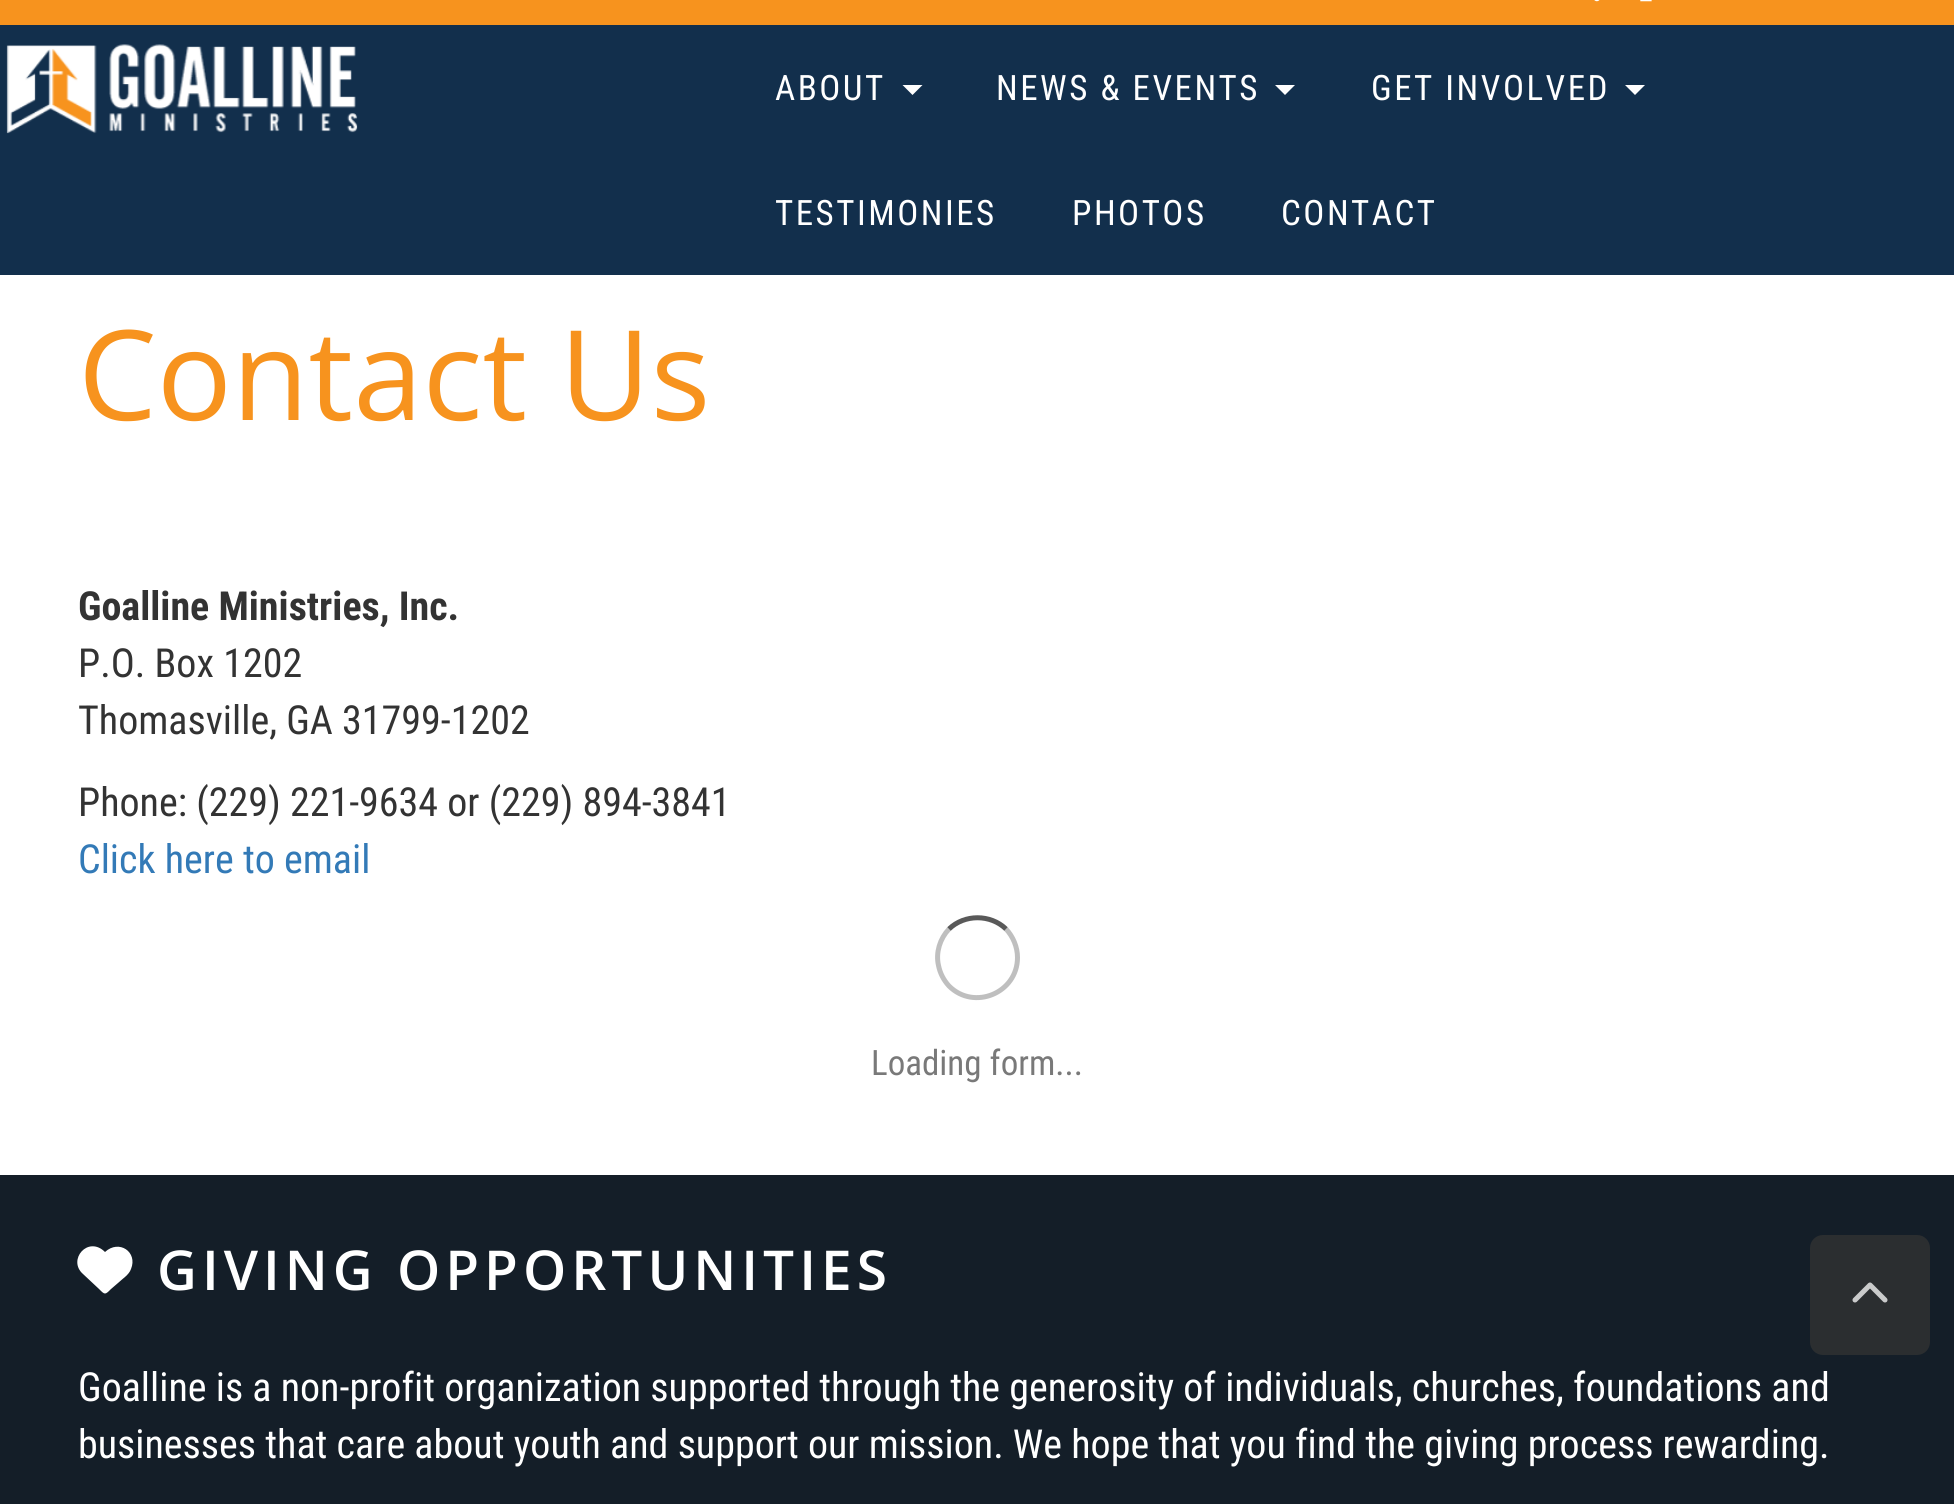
import math
import cairocffi as cairo

surface = cairo.ImageSurface(cairo.FORMAT_RGB24, 1954, 1504)
ctx = cairo.Context(surface)
options = cairo.FontOptions()
options.set_hint_metrics(cairo.HINT_METRICS_OFF)
options.set_hint_style(cairo.HINT_STYLE_NONE)
ctx.set_font_options(options)
ctx.set_miter_limit(4)


def rgb(r, g, b):
    ctx.set_source_rgb(r / 255, g / 255, b / 255)


def face(family, size, italic, bold):
    ctx.select_font_face(family, cairo.FONT_SLANT_ITALIC if italic else cairo.FONT_SLANT_NORMAL, cairo.FONT_WEIGHT_BOLD if bold else cairo.FONT_WEIGHT_NORMAL)
    ctx.set_font_size(size)


def label(x, y, s):
    ctx.move_to(x, y)
    ctx.show_text(s)


def tracked(x, y, s, letter, word):
    ctx.move_to(x, y)
    for ch in s:
        ctx.show_text(ch)
        ctx.rel_move_to(letter + word * (ch == ' '), 0)


def rect(x, y, w, h):
    ctx.rectangle(x, y, w, h)
    ctx.fill()


def rrect(x, y, w, h, r):
    ctx.new_sub_path()
    for i, (u, v) in enumerate([(x + w - r, y + h - r), (x + r, y + h - r), (x + r, y + r), (x + w - r, y + r)]):
        ctx.arc(u, v, r, i * math.pi / 2, (i + 1) * math.pi / 2)
    ctx.close_path()


def image(path, x, y, w, h):
    ctx.save()
    ctx.set_source_surface(cairo.ImageSurface.create_from_png(path), x, y)
    ctx.rectangle(x, y, w, h)
    ctx.fill()
    ctx.restore()


rgb(255, 255, 255)
ctx.paint()
rgb(247, 147, 30)
rect(0, 0, 1954, 25)
rgb(18, 47, 76)
rect(0, 25, 1954, 250)
image('image0.png', 1594, 0, 6, 2)
image('image1.png', 1640, 0, 12, 2)
image('image2.png', 6, 44, 352, 90)
face('Roboto Condensed', 35, 0, 0)
rgb(255, 255, 255)
tracked(775, 100, 'ABOUT', 2.5, 0)
ctx.new_path()
ctx.move_to(902.5, 85)
ctx.line_to(922.5, 85)
ctx.line_to(912.5, 95)
ctx.close_path()
ctx.fill()
tracked(996, 100, 'NEWS & EVENTS', 2.5, 0)
ctx.new_path()
ctx.move_to(1275, 85)
ctx.line_to(1295, 85)
ctx.line_to(1285, 95)
ctx.close_path()
ctx.fill()
tracked(1371, 100, 'GET INVOLVED', 2.5, 0)
ctx.new_path()
ctx.move_to(1625, 85)
ctx.line_to(1645, 85)
ctx.line_to(1635, 95)
ctx.close_path()
ctx.fill()
tracked(775, 225, 'TESTIMONIES', 2.5, 0)
tracked(1072, 225, 'PHOTOS', 2.5, 0)
tracked(1281, 225, 'CONTACT', 2.5, 0)
face('Open Sans', 125, 0, 0)
rgb(247, 147, 30)
label(78, 420, 'Contact Us')
face('Roboto Condensed', 40, 0, 1)
rgb(51, 51, 51)
label(78, 620, 'Goalline Ministries, Inc.')
face('Roboto Condensed', 40, 0, 0)
label(78, 677, 'P.O. Box 1202')
label(78, 734, 'Thomasville, GA 31799-1202')
label(78, 816, 'Phone: (229) 221-9634 or (229) 894-3841')
rgb(51, 122, 183)
label(78, 873, 'Click here to email')
ctx.new_path()
ctx.move_to(949, 929)
ctx.curve_to(964.5, 914, 990.5, 914, 1006, 929)
rgb(89, 89, 89)
ctx.set_line_width(5)
ctx.stroke()
ctx.new_path()
ctx.move_to(1006, 929)
ctx.curve_to(1013, 936.5, 1017.5, 947, 1017.5, 957.5)
ctx.curve_to(1017.5, 993, 974, 1011, 949, 986)
ctx.curve_to(943.5, 980, 940, 973, 938.5, 965.5)
ctx.curve_to(935.5, 952.5, 940, 938.5, 949, 929)
ctx.set_source_rgba(0, 0, 0, 0.25)
ctx.stroke()
face('Roboto Condensed', 35, 0, 0)
rgb(121, 121, 121)
label(871, 1075, 'Loading form...')
rgb(20, 30, 40)
rect(0, 1175, 1954, 329)
rgb(255, 255, 255)
ctx.new_path()
ctx.move_to(83, 1274)
ctx.line_to(102, 1292)
ctx.line_to(83, 1274)
ctx.line_to(99, 1289)
ctx.curve_to(105, 1295, 105, 1295, 111, 1289)
ctx.line_to(118, 1283)
ctx.curve_to(122, 1279, 129, 1275, 131, 1269)
ctx.curve_to(138, 1252, 119, 1239, 105, 1252)
ctx.curve_to(88, 1235, 67, 1260, 83, 1274)
ctx.close_path()
ctx.fill()
face('Open Sans SemiBold', 55, 0, 0)
tracked(157, 1290, 'GIVING OPPORTUNITIES', 5, 0)
face('Roboto Condensed', 40, 0, 0)
label(78, 1401, 'Goalline is a non-profit organization supported through the generosity of individuals, churches, foundations and')
label(78, 1458, 'businesses that care about youth and support our mission. We hope that you find the giving process rewarding.')
rgb(43, 46, 48)
rrect(1810, 1235, 120, 120, 13)
ctx.fill()
image('image3.png', 1852, 1282, 36, 21)
surface.write_to_png('render.png')
